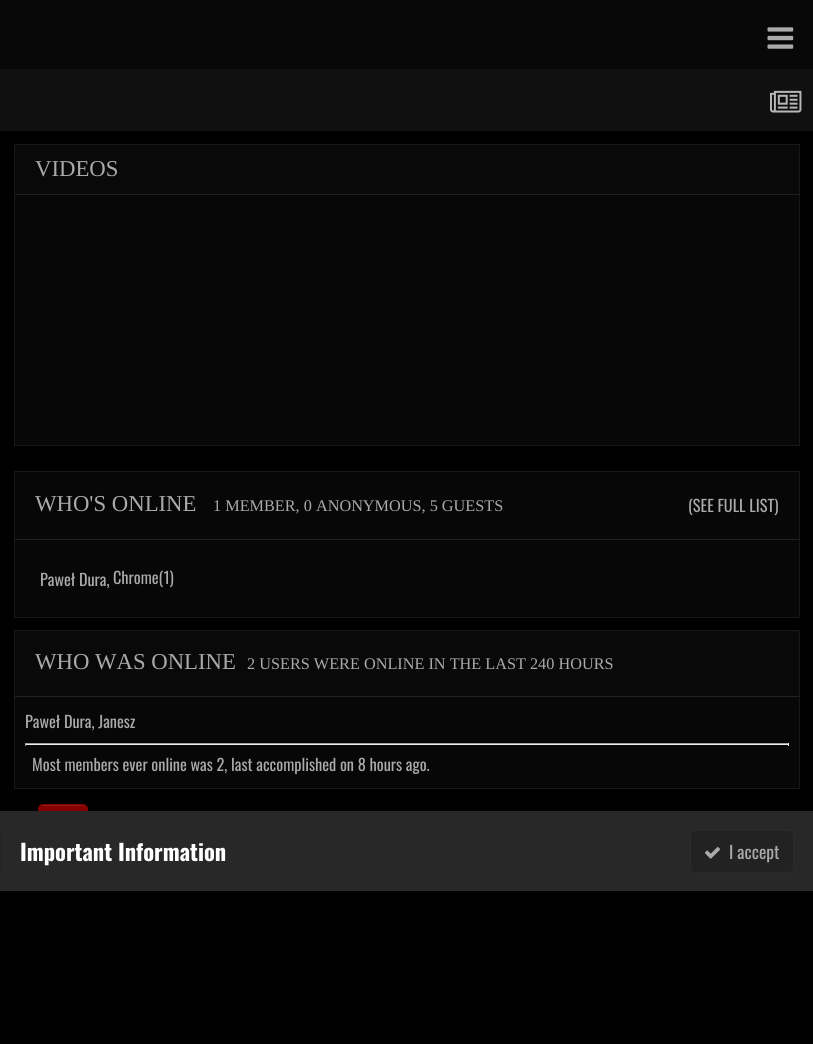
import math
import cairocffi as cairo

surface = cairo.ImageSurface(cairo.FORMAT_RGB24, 813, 1044)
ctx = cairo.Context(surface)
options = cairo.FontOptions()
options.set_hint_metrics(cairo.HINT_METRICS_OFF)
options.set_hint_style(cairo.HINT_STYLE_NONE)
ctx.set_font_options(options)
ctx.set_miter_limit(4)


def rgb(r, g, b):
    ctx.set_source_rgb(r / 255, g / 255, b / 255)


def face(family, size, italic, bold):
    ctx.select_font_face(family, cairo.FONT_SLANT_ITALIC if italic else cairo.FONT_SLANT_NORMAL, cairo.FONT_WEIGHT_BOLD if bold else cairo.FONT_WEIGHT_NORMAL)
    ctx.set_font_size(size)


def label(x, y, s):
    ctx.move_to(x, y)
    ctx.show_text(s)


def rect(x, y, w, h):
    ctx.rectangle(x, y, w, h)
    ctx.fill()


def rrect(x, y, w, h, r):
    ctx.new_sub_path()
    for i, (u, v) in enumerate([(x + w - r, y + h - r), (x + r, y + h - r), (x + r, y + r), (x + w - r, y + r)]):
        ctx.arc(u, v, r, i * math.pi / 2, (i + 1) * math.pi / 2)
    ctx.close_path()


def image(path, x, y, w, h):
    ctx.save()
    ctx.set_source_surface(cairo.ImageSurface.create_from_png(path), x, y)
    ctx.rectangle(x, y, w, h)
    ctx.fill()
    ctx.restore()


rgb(0, 0, 0)
ctx.paint()
rgb(8, 8, 8)
rect(0, 0, 813, 69)
image('image0.png', 767, 27, 27, 22)
rgb(16, 16, 16)
rect(0, 69, 813, 62)
image('image1.png', 770, 90, 32, 23)
rgb(7, 7, 7)
rect(15, 195, 784, 250)
ctx.rectangle(14.5, 144.5, 785, 301)
rgb(24, 24, 24)
ctx.set_line_width(1)
ctx.stroke()
rgb(9, 9, 9)
rect(15, 145, 784, 49)
rgb(33, 33, 33)
rect(15, 194, 784, 1)
face('Liberation Serif', 22.75, 0, 0)
rgb(170, 170, 170)
label(35, 176, 'VIDEOS')
rgb(7, 7, 7)
ctx.rectangle(14.5, 471.5, 785, 146)
ctx.fill_preserve()
rgb(24, 24, 24)
ctx.stroke()
rgb(33, 33, 33)
rect(15, 539, 784, 1)
rgb(170, 170, 170)
label(35, 511, 'WHO\'S ONLINE')
face('Liberation Serif', 16.25, 0, 0)
label(213, 511, '1 MEMBER, 0 ANONYMOUS, 5 GUESTS')
face('Oswald', 16.25, 0, 0)
label(688, 512, '(SEE FULL LIST)')
label(40, 586, 'Paweł Dura,')
label(113, 584, 'Chrome(1)')
rgb(7, 7, 7)
rect(15, 698, 784, 90)
ctx.rectangle(14.5, 630.5, 785, 158)
rgb(24, 24, 24)
ctx.stroke()
rgb(9, 9, 9)
rect(15, 631, 784, 67)
rgb(33, 33, 33)
rect(15, 696, 784, 1)
face('Liberation Serif', 22.75, 0, 0)
rgb(170, 170, 170)
label(35, 669, 'WHO WAS ONLINE')
face('Liberation Serif', 16.25, 0, 0)
label(247, 669, '2 USERS WERE ONLINE IN THE LAST 240 HOURS')
face('Oswald', 16.25, 0, 0)
label(25, 728, 'Paweł Dura, Janesz')
rgb(159, 159, 159)
rect(25, 743, 764, 1)
rgb(238, 238, 238)
rect(788, 743, 1, 3)
rect(25, 744, 764, 1)
rgb(159, 159, 159)
rect(25, 743, 1, 3)
rgb(170, 170, 170)
label(32, 771, 'Most members ever online was 2, last accomplished on 8 hours ago.')
rgb(135, 0, 0)
rrect(38, 804, 50, 50, 5)
ctx.fill()
rgb(147, 26, 26)
ctx.new_path()
ctx.move_to(42, 806)
ctx.line_to(82, 806)
ctx.curve_to(85, 806, 86, 808, 86, 810)
ctx.curve_to(86, 804, 80, 805, 76, 805)
ctx.line_to(50, 805)
ctx.curve_to(45, 805, 39, 804, 39, 810)
ctx.curve_to(39, 808, 40, 806, 42, 806)
ctx.close_path()
ctx.fill()
rrect(38.5, 804.5, 49, 49, 4.5)
ctx.set_source_rgba(0, 0, 0, 0.1)
ctx.stroke()
rgb(40, 40, 40)
rect(0, 811, 813, 80)
rgb(36, 36, 36)
rect(0, 830, 1, 43)
face('Oswald', 22.5, 0, 1)
rgb(255, 255, 255)
label(20, 861, 'Important Information')
rgb(34, 34, 34)
rrect(690, 830, 104, 43, 5)
ctx.fill()
rrect(690.5, 830.5, 103, 42, 4.5)
ctx.set_source_rgba(0.667, 0.667, 0.667, 0.07)
ctx.stroke()
image('image2.png', 705, 847, 15, 12)
face('Oswald', 17.5, 0, 0)
rgb(170, 170, 170)
label(729, 859, 'I accept')
surface.write_to_png('render.png')
